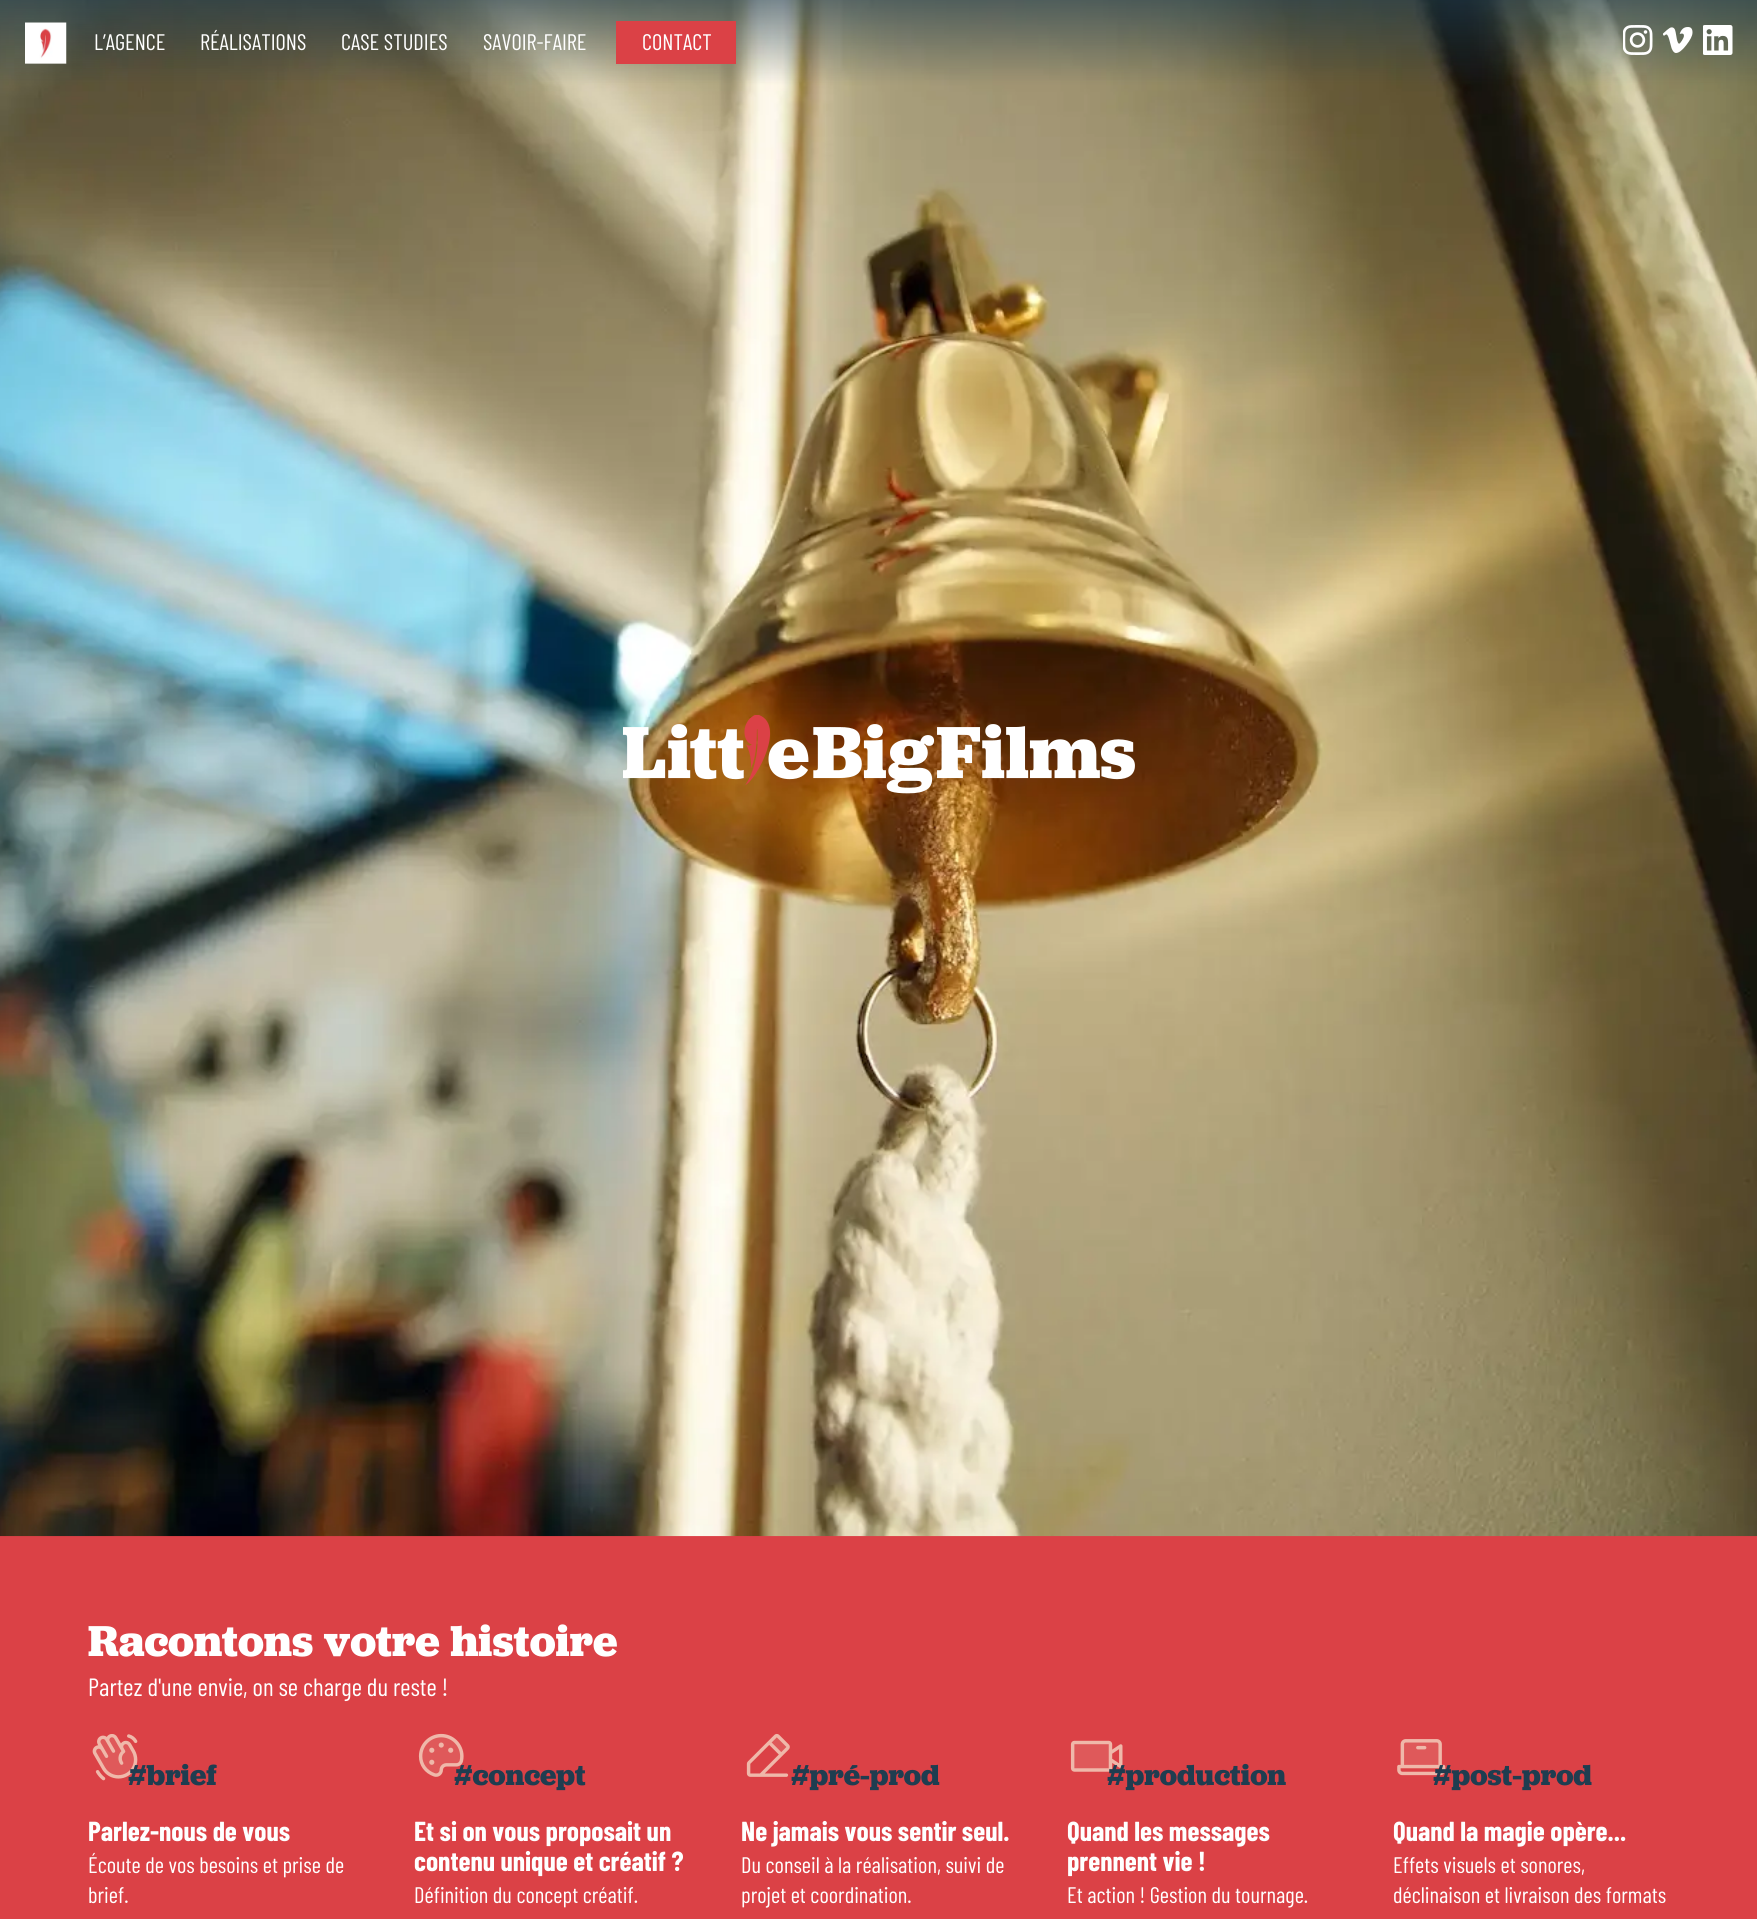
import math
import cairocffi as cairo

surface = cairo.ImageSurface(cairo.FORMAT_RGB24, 1757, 1919)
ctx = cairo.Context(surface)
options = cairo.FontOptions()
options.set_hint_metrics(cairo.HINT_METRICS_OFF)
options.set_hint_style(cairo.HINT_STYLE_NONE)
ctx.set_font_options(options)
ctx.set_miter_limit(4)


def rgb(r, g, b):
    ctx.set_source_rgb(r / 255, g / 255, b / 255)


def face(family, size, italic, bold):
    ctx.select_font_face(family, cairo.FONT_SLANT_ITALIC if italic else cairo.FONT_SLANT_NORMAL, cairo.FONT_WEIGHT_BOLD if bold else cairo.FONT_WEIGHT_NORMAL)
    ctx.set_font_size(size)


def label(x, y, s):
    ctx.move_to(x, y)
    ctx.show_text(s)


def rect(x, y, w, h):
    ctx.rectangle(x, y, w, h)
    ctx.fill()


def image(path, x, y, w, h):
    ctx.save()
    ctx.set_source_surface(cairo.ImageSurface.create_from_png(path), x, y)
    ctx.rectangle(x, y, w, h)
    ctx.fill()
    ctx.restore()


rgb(219, 65, 70)
ctx.paint()
image('image4.png', 0, 0, 1757, 1537)
image('image0.png', 25, 22, 42, 42)
face('Barlow Condensed', 22.5, 0, 0)
rgb(255, 255, 255)
label(94, 50, 'L’AGENCE')
label(200, 50, 'RÉALISATIONS')
label(341, 50, 'CASE STUDIES')
label(483, 50, 'SAVOIR-FAIRE')
rgb(219, 65, 70)
rect(616, 21, 120, 43)
rgb(255, 255, 255)
label(642, 50, 'CONTACT')
image('image1.png', 1623, 25, 30, 30)
image('image2.png', 1663, 27, 30, 26)
image('image3.png', 1703, 25, 30, 30)
image('image5.png', 623, 715, 512, 79)
face('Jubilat', 45, 0, 1)
label(88, 1656, 'Racontons votre histoire')
face('Barlow Condensed', 25, 0, 0)
label(88, 1696, 'Partez d\'une envie, on se charge du reste !')
image('image6.png', 92, 1734, 46, 47)
face('Jubilat', 30, 0, 1)
rgb(31, 61, 80)
label(128, 1785, '#brief')
face('Barlow Condensed', 27.5, 0, 1)
rgb(255, 255, 255)
label(88, 1841, 'Parlez-nous de vous')
face('Barlow Condensed', 22.5, 0, 0)
label(88, 1873, 'Écoute de vos besoins et prise de')
label(88, 1903, 'brief.')
image('image7.png', 418, 1733, 46, 44)
face('Jubilat', 30, 0, 1)
rgb(31, 61, 80)
label(454, 1785, '#concept')
face('Barlow Condensed', 27.5, 0, 1)
rgb(255, 255, 255)
label(414, 1841, 'Et si on vous proposait un')
label(414, 1871, 'contenu unique et créatif ?')
face('Barlow Condensed', 22.5, 0, 0)
label(414, 1903, 'Définition du concept créatif.')
image('image8.png', 746, 1733, 44, 44)
face('Jubilat', 30, 0, 1)
rgb(31, 61, 80)
label(791, 1785, '#pré-prod')
face('Barlow Condensed', 27.5, 0, 1)
rgb(255, 255, 255)
label(741, 1841, 'Ne jamais vous sentir seul.')
face('Barlow Condensed', 22.5, 0, 0)
label(741, 1873, 'Du conseil à la réalisation, suivi de')
label(741, 1903, 'projet et coordination.')
image('image9.png', 1070, 1740, 53, 32)
face('Jubilat', 30, 0, 1)
rgb(31, 61, 80)
label(1107, 1785, '#production')
face('Barlow Condensed', 27.5, 0, 1)
rgb(255, 255, 255)
label(1067, 1841, 'Quand les messages')
label(1067, 1871, 'prennent vie !')
face('Barlow Condensed', 22.5, 0, 0)
label(1067, 1903, 'Et action ! Gestion du tournage.')
image('image10.png', 1397, 1739, 49, 37)
face('Jubilat', 30, 0, 1)
rgb(31, 61, 80)
label(1433, 1785, '#post-prod')
face('Barlow Condensed', 27.5, 0, 1)
rgb(255, 255, 255)
label(1393, 1841, 'Quand la magie opère...')
face('Barlow Condensed', 22.5, 0, 0)
label(1393, 1873, 'Effets visuels et sonores,')
label(1393, 1903, 'déclinaison et livraison des formats')
surface.write_to_png('render.png')
